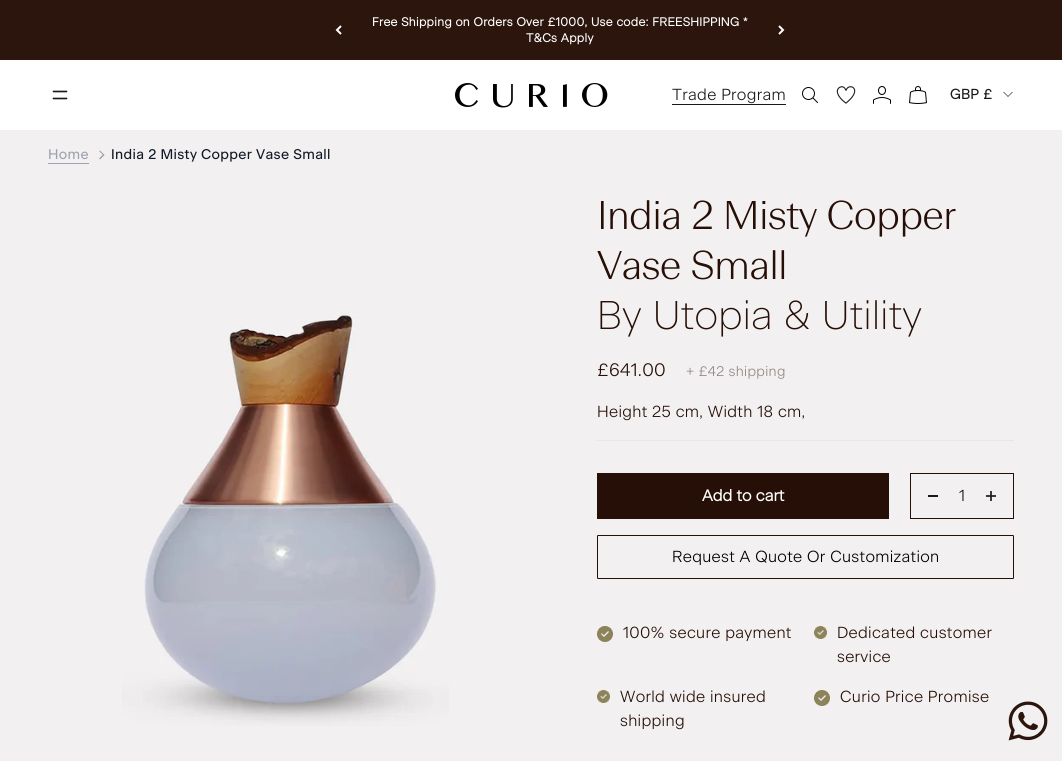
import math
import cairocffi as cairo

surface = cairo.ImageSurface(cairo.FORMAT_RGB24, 1062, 761)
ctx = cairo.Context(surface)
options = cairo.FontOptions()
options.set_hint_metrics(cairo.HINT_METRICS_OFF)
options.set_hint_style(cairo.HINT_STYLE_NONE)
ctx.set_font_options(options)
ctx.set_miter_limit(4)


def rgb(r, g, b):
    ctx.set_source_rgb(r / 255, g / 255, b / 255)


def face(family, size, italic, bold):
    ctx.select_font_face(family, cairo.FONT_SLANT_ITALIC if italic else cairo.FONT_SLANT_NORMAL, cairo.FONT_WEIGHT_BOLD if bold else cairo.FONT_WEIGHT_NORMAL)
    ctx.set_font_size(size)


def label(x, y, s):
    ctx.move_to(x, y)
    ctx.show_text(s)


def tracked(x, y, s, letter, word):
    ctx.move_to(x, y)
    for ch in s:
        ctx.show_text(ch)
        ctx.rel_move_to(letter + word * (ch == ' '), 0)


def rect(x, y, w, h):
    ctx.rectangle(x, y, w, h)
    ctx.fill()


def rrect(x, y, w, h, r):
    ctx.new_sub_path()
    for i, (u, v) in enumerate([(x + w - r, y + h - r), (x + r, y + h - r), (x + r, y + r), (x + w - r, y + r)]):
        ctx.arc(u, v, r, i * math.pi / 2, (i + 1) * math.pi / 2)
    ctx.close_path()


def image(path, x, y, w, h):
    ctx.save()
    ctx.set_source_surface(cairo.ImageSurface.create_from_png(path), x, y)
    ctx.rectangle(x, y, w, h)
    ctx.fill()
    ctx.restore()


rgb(255, 255, 255)
ctx.paint()
rgb(43, 21, 12)
rect(0, 0, 1062, 60)
ctx.new_path()
ctx.move_to(341, 26)
ctx.line_to(337, 30)
ctx.line_to(341, 34)
rgb(255, 255, 255)
ctx.stroke()
face('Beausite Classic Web', 12, 0, 1)
tracked(372, 26, 'Free Shipping on Orders Over £1000, Use code: FREESHIPPING *', 0.32, 0)
tracked(526, 42, 'T&Cs Apply', 0.32, 0)
ctx.new_path()
ctx.move_to(779, 34)
ctx.line_to(783, 30)
ctx.line_to(779, 26)
ctx.stroke()
ctx.new_path()
ctx.move_to(53.5, 91.5)
ctx.line_to(66.5, 91.5)
ctx.move_to(53.5, 98.5)
ctx.line_to(66.5, 98.5)
rgb(26, 26, 26)
ctx.set_line_width(1.7)
ctx.set_line_cap(cairo.LINE_CAP_ROUND)
ctx.set_line_join(cairo.LINE_JOIN_ROUND)
ctx.stroke()
image('image0.png', 455, 83, 153, 25)
face('Beausite Classic Web Light', 16, 0, 0)
tracked(672, 100, 'Trade Program', 0.32, 0)
rect(672, 104, 114, 1)
image('image1.png', 802, 87, 16, 17)
image('image2.png', 836, 86, 20, 18)
image('image3.png', 873, 86, 18, 18)
image('image4.png', 909, 86, 18, 18)
face('Beausite Classic Web', 14, 0, 1)
tracked(950, 99, 'GBP £', 0.32, 0)
ctx.new_path()
ctx.move_to(1003.5, 92)
ctx.line_to(1008, 96.5)
ctx.line_to(1012.5, 92)
ctx.set_line_width(0.6)
ctx.set_line_cap(cairo.LINE_CAP_BUTT)
ctx.set_line_join(cairo.LINE_JOIN_MITER)
ctx.stroke()
rgb(243, 240, 241)
rect(0, 130, 1062, 631)
face('Beausite Classic Web', 14, 0, 0)
rgb(156, 163, 175)
tracked(48, 159, 'Home', 0.32, 0)
rect(48, 163, 41, 1)
ctx.new_path()
ctx.move_to(100, 150.5)
ctx.line_to(104.5, 155)
ctx.line_to(103.5, 155.5)
ctx.line_to(99, 151)
ctx.close_path()
ctx.fill()
ctx.new_path()
ctx.move_to(103.5, 154)
ctx.line_to(104.5, 155)
ctx.line_to(100, 159.5)
ctx.line_to(99, 158.5)
ctx.close_path()
ctx.fill()
rgb(17, 24, 39)
tracked(111, 159, 'India 2 Misty Copper Vase Small', 0.32, 0)
rgb(59, 58, 58)
rect(986, 495, 10, 2)
image('image5.png', 122, 312, 327, 414)
face('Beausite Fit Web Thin', 40, 0, 0)
rgb(37, 15, 6)
tracked(597, 229, 'India 2 Misty Copper', -0.8, 0)
tracked(597, 279, 'Vase Small', -0.8, 0)
face('Beausite Classic Web Thin', 40, 0, 0)
tracked(597, 329, 'By Utopia & Utility', 0.32, 0)
face('Beausite Classic Web Light', 18, 0, 0)
tracked(597, 376, '£641.00', 0.32, 0)
face('Beausite Classic Web Light', 14, 0, 0)
rgb(144, 135, 131)
tracked(686, 376, '+ £42 shipping', 0.32, 0)
face('Beausite Classic Web Light', 16, 0, 0)
rgb(37, 15, 6)
tracked(597, 417, 'Height 25 cm, Width 18 cm,', 0.32, 0)
rgb(229, 231, 235)
rect(597, 440, 417, 1)
rgb(37, 15, 6)
rect(597, 473, 292, 46)
face('Beausite Classic Web', 16, 0, 1)
rgb(255, 255, 255)
label(702, 501, 'Add to cart')
ctx.rectangle(910.5, 473.5, 103, 45)
rgb(37, 15, 6)
ctx.set_line_width(1)
ctx.stroke()
rgb(26, 26, 26)
rect(928, 495, 10, 2)
face('Beausite Classic Web Light', 16, 0, 0)
tracked(959, 501, '1', 0.32, 0)
rgb(59, 58, 58)
rect(990, 491, 2, 10)
rgb(31, 31, 31)
rect(990, 495, 2, 2)
rrect(597.5, 535.5, 416, 43, 0.5)
rgb(37, 15, 6)
ctx.stroke()
rgb(0, 0, 0)
tracked(672, 562, 'Request A Quote Or Customization', 0.32, 0)
image('image6.png', 597, 626, 16, 16)
rgb(37, 15, 6)
tracked(623, 638, '100% secure payment', 0.32, 0)
image('image7.png', 814, 626, 13, 13)
tracked(837, 638, 'Dedicated customer', 0.32, 0)
tracked(837, 662, 'service', 0.32, 0)
image('image7.png', 597, 690, 13, 13)
tracked(620, 702, 'World wide insured', 0.32, 0)
tracked(620, 726, 'shipping', 0.32, 0)
image('image6.png', 814, 690, 16, 16)
tracked(840, 702, 'Curio Price Promise', 0.32, 0)
image('image8.png', 1008, 701, 40, 40)
surface.write_to_png('render.png')
